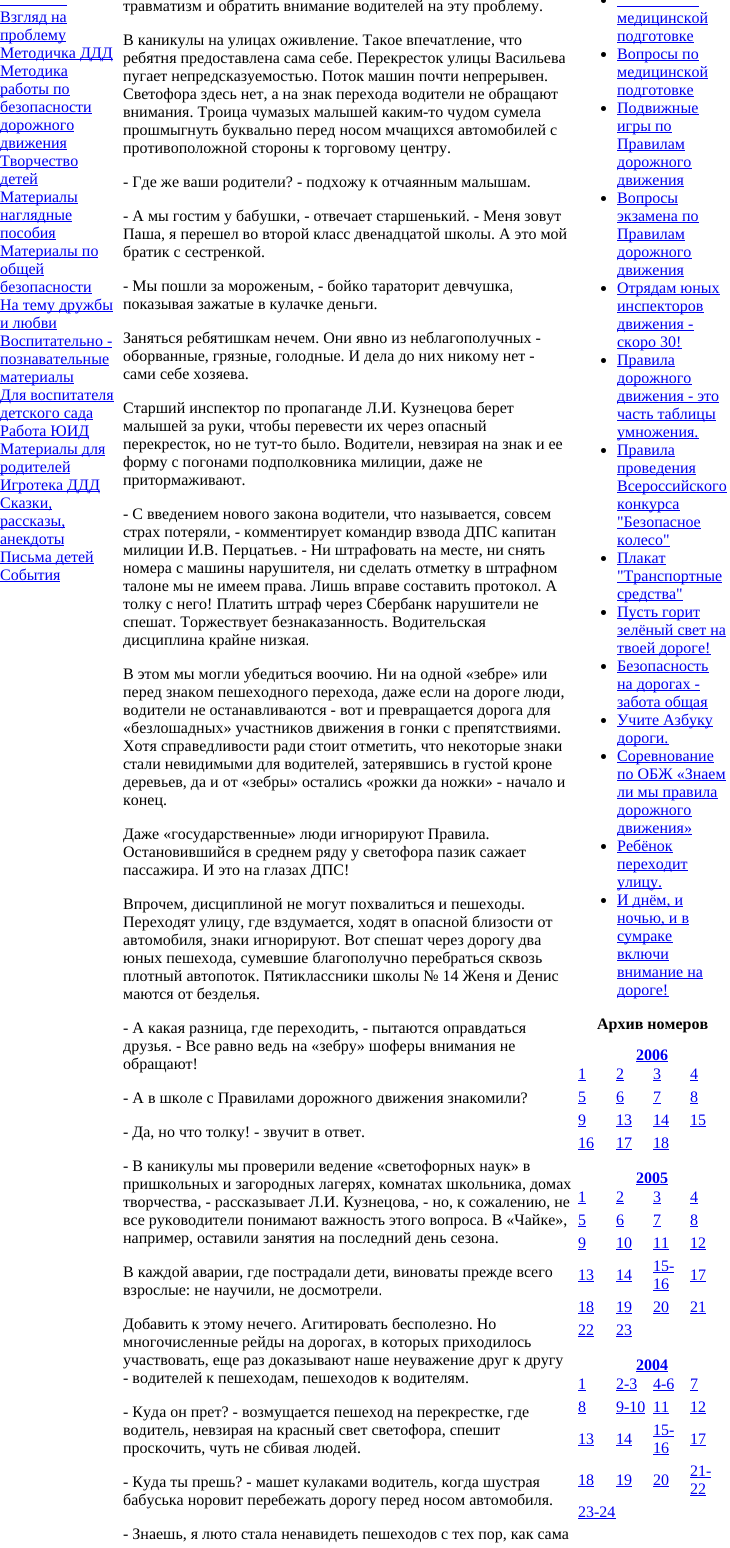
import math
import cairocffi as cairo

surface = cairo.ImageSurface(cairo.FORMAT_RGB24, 730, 1548)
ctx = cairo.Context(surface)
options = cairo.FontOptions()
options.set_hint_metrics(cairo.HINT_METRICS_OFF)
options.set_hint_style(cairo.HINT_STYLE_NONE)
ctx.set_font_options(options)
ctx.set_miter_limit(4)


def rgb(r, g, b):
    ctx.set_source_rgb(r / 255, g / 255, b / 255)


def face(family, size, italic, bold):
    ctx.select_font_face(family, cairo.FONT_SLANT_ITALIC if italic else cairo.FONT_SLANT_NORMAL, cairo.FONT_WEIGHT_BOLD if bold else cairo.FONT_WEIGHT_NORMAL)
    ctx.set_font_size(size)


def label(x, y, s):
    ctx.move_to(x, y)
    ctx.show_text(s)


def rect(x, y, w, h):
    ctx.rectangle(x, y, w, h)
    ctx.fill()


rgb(255, 255, 255)
ctx.paint()
rgb(0, 0, 238)
rect(0, 5, 67, 1)
rect(0, 23, 67, 1)
face('Liberation Serif', 16, 0, 0)
label(0, 22, 'Взгляд на')
rect(0, 41, 66, 1)
label(0, 40, 'проблему')
rect(0, 59, 113, 1)
label(0, 58, 'Методичка ДДД')
rect(0, 77, 68, 1)
label(0, 76, 'Методика')
rect(0, 95, 70, 1)
label(0, 94, 'работы по')
label(0, 112, 'безопасности')
rect(0, 113, 92, 1)
rect(0, 131, 74, 1)
label(0, 130, 'дорожного')
rect(0, 149, 67, 1)
label(0, 148, 'движения')
rect(0, 167, 78, 1)
label(0, 166, 'Творчество')
rect(0, 185, 38, 1)
label(0, 184, 'детей')
rect(0, 203, 78, 1)
label(0, 202, 'Материалы')
rect(0, 221, 72, 1)
label(0, 220, 'наглядные')
label(0, 238, 'пособия')
rect(0, 239, 56, 1)
rect(0, 257, 98, 1)
label(0, 256, 'Материалы по')
rect(0, 275, 44, 1)
label(0, 274, 'общей')
label(0, 292, 'безопасности')
rect(0, 293, 92, 1)
rect(0, 311, 113, 1)
label(0, 310, 'На тему дружбы')
label(0, 328, 'и любви')
rect(0, 329, 57, 1)
label(0, 346, 'Воспитательно -')
rect(0, 347, 112, 1)
label(0, 364, 'познавательные')
rect(0, 365, 109, 1)
rect(0, 383, 74, 1)
label(0, 382, 'материалы')
rect(0, 401, 114, 1)
label(0, 400, 'Для воспитателя')
rect(0, 419, 93, 1)
label(0, 418, 'детского сада')
rect(0, 437, 89, 1)
label(0, 436, 'Работа ЮИД')
rect(0, 455, 105, 1)
label(0, 454, 'Материалы для')
rect(0, 473, 70, 1)
label(0, 472, 'родителей')
rect(0, 491, 100, 1)
label(0, 490, 'Игротека ДДД')
rect(0, 509, 52, 1)
label(0, 508, 'Сказки,')
rect(0, 527, 65, 1)
label(0, 526, 'рассказы,')
rect(0, 545, 64, 1)
label(0, 544, 'анекдоты')
rect(0, 563, 94, 1)
label(0, 562, 'Письма детей')
label(0, 580, 'События')
rect(0, 581, 60, 1)
rgb(0, 0, 0)
label(123, 11, 'травматизм и обратить внимание водителей на эту проблему.')
label(123, 45, 'В каникулы на улицах оживление. Такое впечатление, что')
label(123, 63, 'ребятня предоставлена сама себе. Перекресток улицы Васильева')
label(123, 81, 'пугает непредсказуемостью. Поток машин почти непрерывен.')
label(123, 99, 'Светофора здесь нет, а на знак перехода водители не обращают')
label(123, 117, 'внимания. Троица чумазых малышей каким-то чудом сумела')
label(123, 135, 'прошмыгнуть буквально перед носом мчащихся автомобилей с')
label(123, 153, 'противоположной стороны к торговому центру.')
label(123, 187, '- Где же ваши родители? - подхожу к отчаянным малышам.')
label(123, 221, '- А мы гостим у бабушки, - отвечает старшенький. - Меня зовут')
label(123, 239, 'Паша, я перешел во второй класс двенадцатой школы. А это мой')
label(123, 257, 'братик с сестренкой.')
label(123, 291, '- Мы пошли за мороженым, - бойко тараторит девчушка,')
label(123, 309, 'показывая зажатые в кулачке деньги.')
label(123, 343, 'Заняться ребятишкам нечем. Они явно из неблагополучных -')
label(123, 361, 'оборванные, грязные, голодные. И дела до них никому нет -')
label(123, 379, 'сами себе хозяева.')
label(123, 413, 'Старший инспектор по пропаганде Л.И. Кузнецова берет')
label(123, 431, 'малышей за руки, чтобы перевести их через опасный')
label(123, 449, 'перекресток, но не тут-то было. Водители, невзирая на знак и ее')
label(123, 467, 'форму с погонами подполковника милиции, даже не')
label(123, 485, 'притормаживают.')
label(123, 519, '- С введением нового закона водители, что называется, совсем')
label(123, 537, 'страх потеряли, - комментирует командир взвода ДПС капитан')
label(123, 555, 'милиции И.В. Перцатьев. - Ни штрафовать на месте, ни снять')
label(123, 573, 'номера с машины нарушителя, ни сделать отметку в штрафном')
label(123, 591, 'талоне мы не имеем права. Лишь вправе составить протокол. А')
label(123, 609, 'толку с него! Платить штраф через Сбербанк нарушители не')
label(123, 627, 'спешат. Торжествует безнаказанность. Водительская')
label(123, 645, 'дисциплина крайне низкая.')
label(123, 679, 'В этом мы могли убедиться воочию. Ни на одной «зебре» или')
label(123, 697, 'перед знаком пешеходного перехода, даже если на дороге люди,')
label(123, 715, 'водители не останавливаются - вот и превращается дорога для')
label(123, 733, '«безлошадных» участников движения в гонки с препятствиями.')
label(123, 751, 'Хотя справедливости ради стоит отметить, что некоторые знаки')
label(123, 769, 'стали невидимыми для водителей, затерявшись в густой кроне')
label(123, 787, 'деревьев, да и от «зебры» остались «рожки да ножки» - начало и')
label(123, 805, 'конец.')
label(123, 839, 'Даже «государственные» люди игнорируют Правила.')
label(123, 857, 'Остановившийся в среднем ряду у светофора пазик сажает')
label(123, 875, 'пассажира. И это на глазах ДПС!')
label(123, 909, 'Впрочем, дисциплиной не могут похвалиться и пешеходы.')
label(123, 927, 'Переходят улицу, где вздумается, ходят в опасной близости от')
label(123, 945, 'автомобиля, знаки игнорируют. Вот спешат через дорогу два')
label(123, 963, 'юных пешехода, сумевшие благополучно перебраться сквозь')
label(123, 981, 'плотный автопоток. Пятиклассники школы № 14 Женя и Денис')
label(123, 999, 'маются от безделья.')
label(123, 1033, '- А какая разница, где переходить, - пытаются оправдаться')
label(123, 1051, 'друзья. - Все равно ведь на «зебру» шоферы внимания не')
label(123, 1069, 'обращают!')
label(123, 1103, '- А в школе с Правилами дорожного движения знакомили?')
label(123, 1137, '- Да, но что толку! - звучит в ответ.')
label(123, 1171, '- В каникулы мы проверили ведение «светофорных наук» в')
label(123, 1189, 'пришкольных и загородных лагерях, комнатах школьника, домах')
label(123, 1207, 'творчества, - рассказывает Л.И. Кузнецова, - но, к сожалению, не')
label(123, 1225, 'все руководители понимают важность этого вопроса. В «Чайке»,')
label(123, 1243, 'например, оставили занятия на последний день сезона.')
label(123, 1277, 'В каждой аварии, где пострадали дети, виноваты прежде всего')
label(123, 1295, 'взрослые: не научили, не досмотрели.')
label(123, 1329, 'Добавить к этому нечего. Агитировать бесполезно. Но')
label(123, 1347, 'многочисленные рейды на дорогах, в которых приходилось')
label(123, 1365, 'участвовать, еще раз доказывают наше неуважение друг к другу')
label(123, 1383, '- водителей к пешеходам, пешеходов к водителям.')
label(123, 1417, '- Куда он прет? - возмущается пешеход на перекрестке, где')
label(123, 1435, 'водитель, невзирая на красный свет светофора, спешит')
label(123, 1453, 'проскочить, чуть не сбивая людей.')
label(123, 1487, '- Куда ты прешь? - машет кулаками водитель, когда шустрая')
label(123, 1505, 'бабуська норовит перебежать дорогу перед носом автомобиля.')
label(123, 1539, '- Знаешь, я люто стала ненавидеть пешеходов с тех пор, как сама')
ctx.new_path()
ctx.arc(603.5, 0.5, 2.5, 0, 2 * math.pi)
ctx.fill()
rgb(0, 0, 238)
rect(617, 24, 91, 1)
label(617, 23, 'медицинской')
rect(617, 6, 82, 1)
rect(617, 42, 77, 1)
label(617, 41, 'подготовке')
rgb(0, 0, 0)
ctx.new_path()
ctx.arc(603.5, 54.5, 2.5, 0, 2 * math.pi)
ctx.fill()
rgb(0, 0, 238)
rect(617, 60, 82, 1)
label(617, 59, 'Вопросы по')
rect(617, 78, 91, 1)
label(617, 77, 'медицинской')
rect(617, 96, 77, 1)
label(617, 95, 'подготовке')
rgb(0, 0, 0)
ctx.new_path()
ctx.arc(603.5, 108.5, 2.5, 0, 2 * math.pi)
ctx.fill()
rgb(0, 0, 238)
rect(617, 114, 82, 1)
label(617, 113, 'Подвижные')
rect(617, 132, 55, 1)
label(617, 131, 'игры по')
rect(617, 150, 68, 1)
label(617, 149, 'Правилам')
rect(617, 168, 75, 1)
label(617, 167, 'дорожного')
rect(617, 186, 67, 1)
label(617, 185, 'движения')
rgb(0, 0, 0)
ctx.new_path()
ctx.arc(603.5, 198.5, 2.5, 0, 2 * math.pi)
ctx.fill()
rgb(0, 0, 238)
rect(617, 204, 61, 1)
label(617, 203, 'Вопросы')
label(617, 221, 'экзамена по')
rect(617, 222, 82, 1)
rect(617, 240, 68, 1)
label(617, 239, 'Правилам')
rect(617, 258, 75, 1)
label(617, 257, 'дорожного')
rect(617, 276, 67, 1)
label(617, 275, 'движения')
rgb(0, 0, 0)
ctx.new_path()
ctx.arc(603.5, 288.5, 2.5, 0, 2 * math.pi)
ctx.fill()
rgb(0, 0, 238)
rect(617, 294, 103, 1)
label(617, 293, 'Отрядам юных')
rect(617, 312, 87, 1)
label(617, 311, 'инспекторов')
rect(617, 330, 77, 1)
label(617, 329, 'движения -')
rect(617, 348, 65, 1)
label(617, 347, 'скоро 30!')
rgb(0, 0, 0)
ctx.new_path()
ctx.arc(603.5, 360.5, 2.5, 0, 2 * math.pi)
ctx.fill()
rgb(0, 0, 238)
rect(617, 366, 58, 1)
label(617, 365, 'Правила')
rect(617, 384, 75, 1)
label(617, 383, 'дорожного')
rect(617, 402, 102, 1)
label(617, 401, 'движения - это')
rect(617, 420, 99, 1)
label(617, 419, 'часть таблицы')
rect(617, 438, 82, 1)
label(617, 437, 'умножения.')
rgb(0, 0, 0)
ctx.new_path()
ctx.arc(603.5, 450.5, 2.5, 0, 2 * math.pi)
ctx.fill()
rgb(0, 0, 238)
rect(617, 456, 58, 1)
label(617, 455, 'Правила')
rect(617, 474, 79, 1)
label(617, 473, 'проведения')
rect(617, 492, 110, 1)
label(617, 491, 'Всероссийского')
rect(617, 510, 63, 1)
label(617, 509, 'конкурса')
label(617, 527, '"Безопасное')
rect(617, 528, 84, 1)
label(617, 545, 'колесо"')
rect(617, 546, 53, 1)
rgb(0, 0, 0)
ctx.new_path()
ctx.arc(603.5, 558.5, 2.5, 0, 2 * math.pi)
ctx.fill()
rgb(0, 0, 238)
label(617, 563, 'Плакат')
rect(617, 564, 49, 1)
rect(617, 582, 105, 1)
label(617, 581, '"Транспортные')
rect(617, 600, 66, 1)
label(617, 599, 'средства"')
rgb(0, 0, 0)
ctx.new_path()
ctx.arc(603.5, 612.5, 2.5, 0, 2 * math.pi)
ctx.fill()
rgb(0, 0, 238)
rect(617, 618, 83, 1)
label(617, 617, 'Пусть горит')
label(617, 635, 'зелёный свет на')
rect(617, 636, 109, 1)
rect(617, 654, 94, 1)
label(617, 653, 'твоей дороге!')
rgb(0, 0, 0)
ctx.new_path()
ctx.arc(603.5, 666.5, 2.5, 0, 2 * math.pi)
ctx.fill()
rgb(0, 0, 238)
label(617, 671, 'Безопасность')
rect(617, 672, 92, 1)
rect(617, 690, 83, 1)
label(617, 689, 'на дорогах -')
rect(617, 708, 91, 1)
label(617, 707, 'забота общая')
rgb(0, 0, 0)
ctx.new_path()
ctx.arc(603.5, 720.5, 2.5, 0, 2 * math.pi)
ctx.fill()
rgb(0, 0, 238)
rect(617, 726, 96, 1)
label(617, 725, 'Учите Азбуку')
rect(617, 744, 52, 1)
label(617, 743, 'дороги.')
rgb(0, 0, 0)
ctx.new_path()
ctx.arc(603.5, 756.5, 2.5, 0, 2 * math.pi)
ctx.fill()
rgb(0, 0, 238)
rect(617, 762, 97, 1)
label(617, 761, 'Соревнование')
label(617, 779, 'по ОБЖ «Знаем')
rect(617, 780, 109, 1)
rect(617, 798, 101, 1)
label(617, 797, 'ли мы правила')
rect(617, 816, 75, 1)
label(617, 815, 'дорожного')
rect(617, 834, 75, 1)
label(617, 833, 'движения»')
rgb(0, 0, 0)
ctx.new_path()
ctx.arc(603.5, 846.5, 2.5, 0, 2 * math.pi)
ctx.fill()
rgb(0, 0, 238)
label(617, 851, 'Ребёнок')
rect(617, 852, 56, 1)
rect(617, 870, 71, 1)
label(617, 869, 'переходит')
rect(617, 888, 45, 1)
label(617, 887, 'улицу.')
rgb(0, 0, 0)
ctx.new_path()
ctx.arc(603.5, 900.5, 2.5, 0, 2 * math.pi)
ctx.fill()
rgb(0, 0, 238)
rect(617, 906, 66, 1)
label(617, 905, 'И днём, и')
rect(617, 924, 72, 1)
label(617, 923, 'ночью, и в')
rect(617, 942, 56, 1)
label(617, 941, 'сумраке')
label(617, 959, 'включи')
rect(617, 960, 52, 1)
label(617, 977, 'внимание на')
rect(617, 978, 86, 1)
rect(617, 996, 52, 1)
label(617, 995, 'дороге!')
face('Liberation Serif', 16, 0, 1)
rgb(0, 0, 0)
label(597, 1029, 'Архив номеров')
rgb(0, 0, 238)
label(636, 1060, '2006')
rect(636, 1061, 32, 1)
face('Liberation Serif', 16, 0, 0)
label(578, 1079, '1')
rect(578, 1080, 8, 1)
label(616, 1079, '2')
rect(616, 1080, 8, 1)
label(653, 1079, '3')
rect(653, 1080, 8, 1)
label(690, 1079, '4')
rect(690, 1080, 8, 1)
label(578, 1102, '5')
rect(578, 1103, 8, 1)
label(616, 1102, '6')
rect(616, 1103, 8, 1)
label(653, 1102, '7')
rect(653, 1103, 8, 1)
label(690, 1102, '8')
rect(690, 1103, 8, 1)
label(578, 1125, '9')
rect(578, 1126, 8, 1)
label(616, 1125, '13')
rect(616, 1126, 16, 1)
label(653, 1125, '14')
rect(653, 1126, 16, 1)
label(690, 1125, '15')
rect(690, 1126, 16, 1)
label(578, 1148, '16')
rect(578, 1149, 16, 1)
label(616, 1148, '17')
rect(616, 1149, 16, 1)
label(653, 1148, '18')
rect(653, 1149, 16, 1)
face('Liberation Serif', 16, 0, 1)
label(636, 1183, '2005')
rect(636, 1184, 32, 1)
face('Liberation Serif', 16, 0, 0)
label(578, 1202, '1')
rect(578, 1203, 8, 1)
label(616, 1202, '2')
rect(616, 1203, 8, 1)
label(653, 1202, '3')
rect(653, 1203, 8, 1)
label(690, 1202, '4')
rect(690, 1203, 8, 1)
label(578, 1225, '5')
rect(578, 1226, 8, 1)
label(616, 1225, '6')
rect(616, 1226, 8, 1)
label(653, 1225, '7')
rect(653, 1226, 8, 1)
label(690, 1225, '8')
rect(690, 1226, 8, 1)
label(578, 1248, '9')
rect(578, 1249, 8, 1)
label(616, 1248, '10')
rect(616, 1249, 16, 1)
label(653, 1248, '11')
rect(653, 1249, 16, 1)
label(690, 1248, '12')
rect(690, 1249, 16, 1)
label(578, 1280, '13')
rect(578, 1281, 16, 1)
label(616, 1280, '14')
rect(616, 1281, 16, 1)
label(653, 1271, '15-')
rect(653, 1272, 21, 1)
label(653, 1289, '16')
rect(653, 1290, 16, 1)
label(690, 1280, '17')
rect(690, 1281, 16, 1)
label(578, 1312, '18')
rect(578, 1313, 16, 1)
label(616, 1312, '19')
rect(616, 1313, 16, 1)
label(653, 1312, '20')
rect(653, 1313, 16, 1)
label(690, 1312, '21')
rect(690, 1313, 16, 1)
label(578, 1335, '22')
rect(578, 1336, 16, 1)
label(616, 1335, '23')
rect(616, 1336, 16, 1)
face('Liberation Serif', 16, 0, 1)
label(636, 1370, '2004')
rect(636, 1371, 32, 1)
face('Liberation Serif', 16, 0, 0)
label(578, 1389, '1')
rect(578, 1390, 8, 1)
label(616, 1389, '2-3')
rect(616, 1390, 21, 1)
label(653, 1389, '4-6')
rect(653, 1390, 21, 1)
label(690, 1389, '7')
rect(690, 1390, 8, 1)
label(578, 1412, '8')
rect(578, 1413, 8, 1)
label(616, 1412, '9-10')
rect(616, 1413, 29, 1)
label(653, 1412, '11')
rect(653, 1413, 16, 1)
label(690, 1412, '12')
rect(690, 1413, 16, 1)
label(578, 1444, '13')
rect(578, 1445, 16, 1)
label(616, 1444, '14')
rect(616, 1445, 16, 1)
label(653, 1435, '15-')
rect(653, 1436, 21, 1)
label(653, 1453, '16')
rect(653, 1454, 16, 1)
label(690, 1444, '17')
rect(690, 1445, 16, 1)
label(578, 1485, '18')
rect(578, 1486, 16, 1)
label(616, 1485, '19')
rect(616, 1486, 16, 1)
label(653, 1485, '20')
rect(653, 1486, 16, 1)
label(690, 1476, '21-')
rect(690, 1477, 21, 1)
label(690, 1494, '22')
rect(690, 1495, 16, 1)
label(578, 1517, '23-24')
rect(578, 1518, 38, 1)
surface.write_to_png('render.png')
